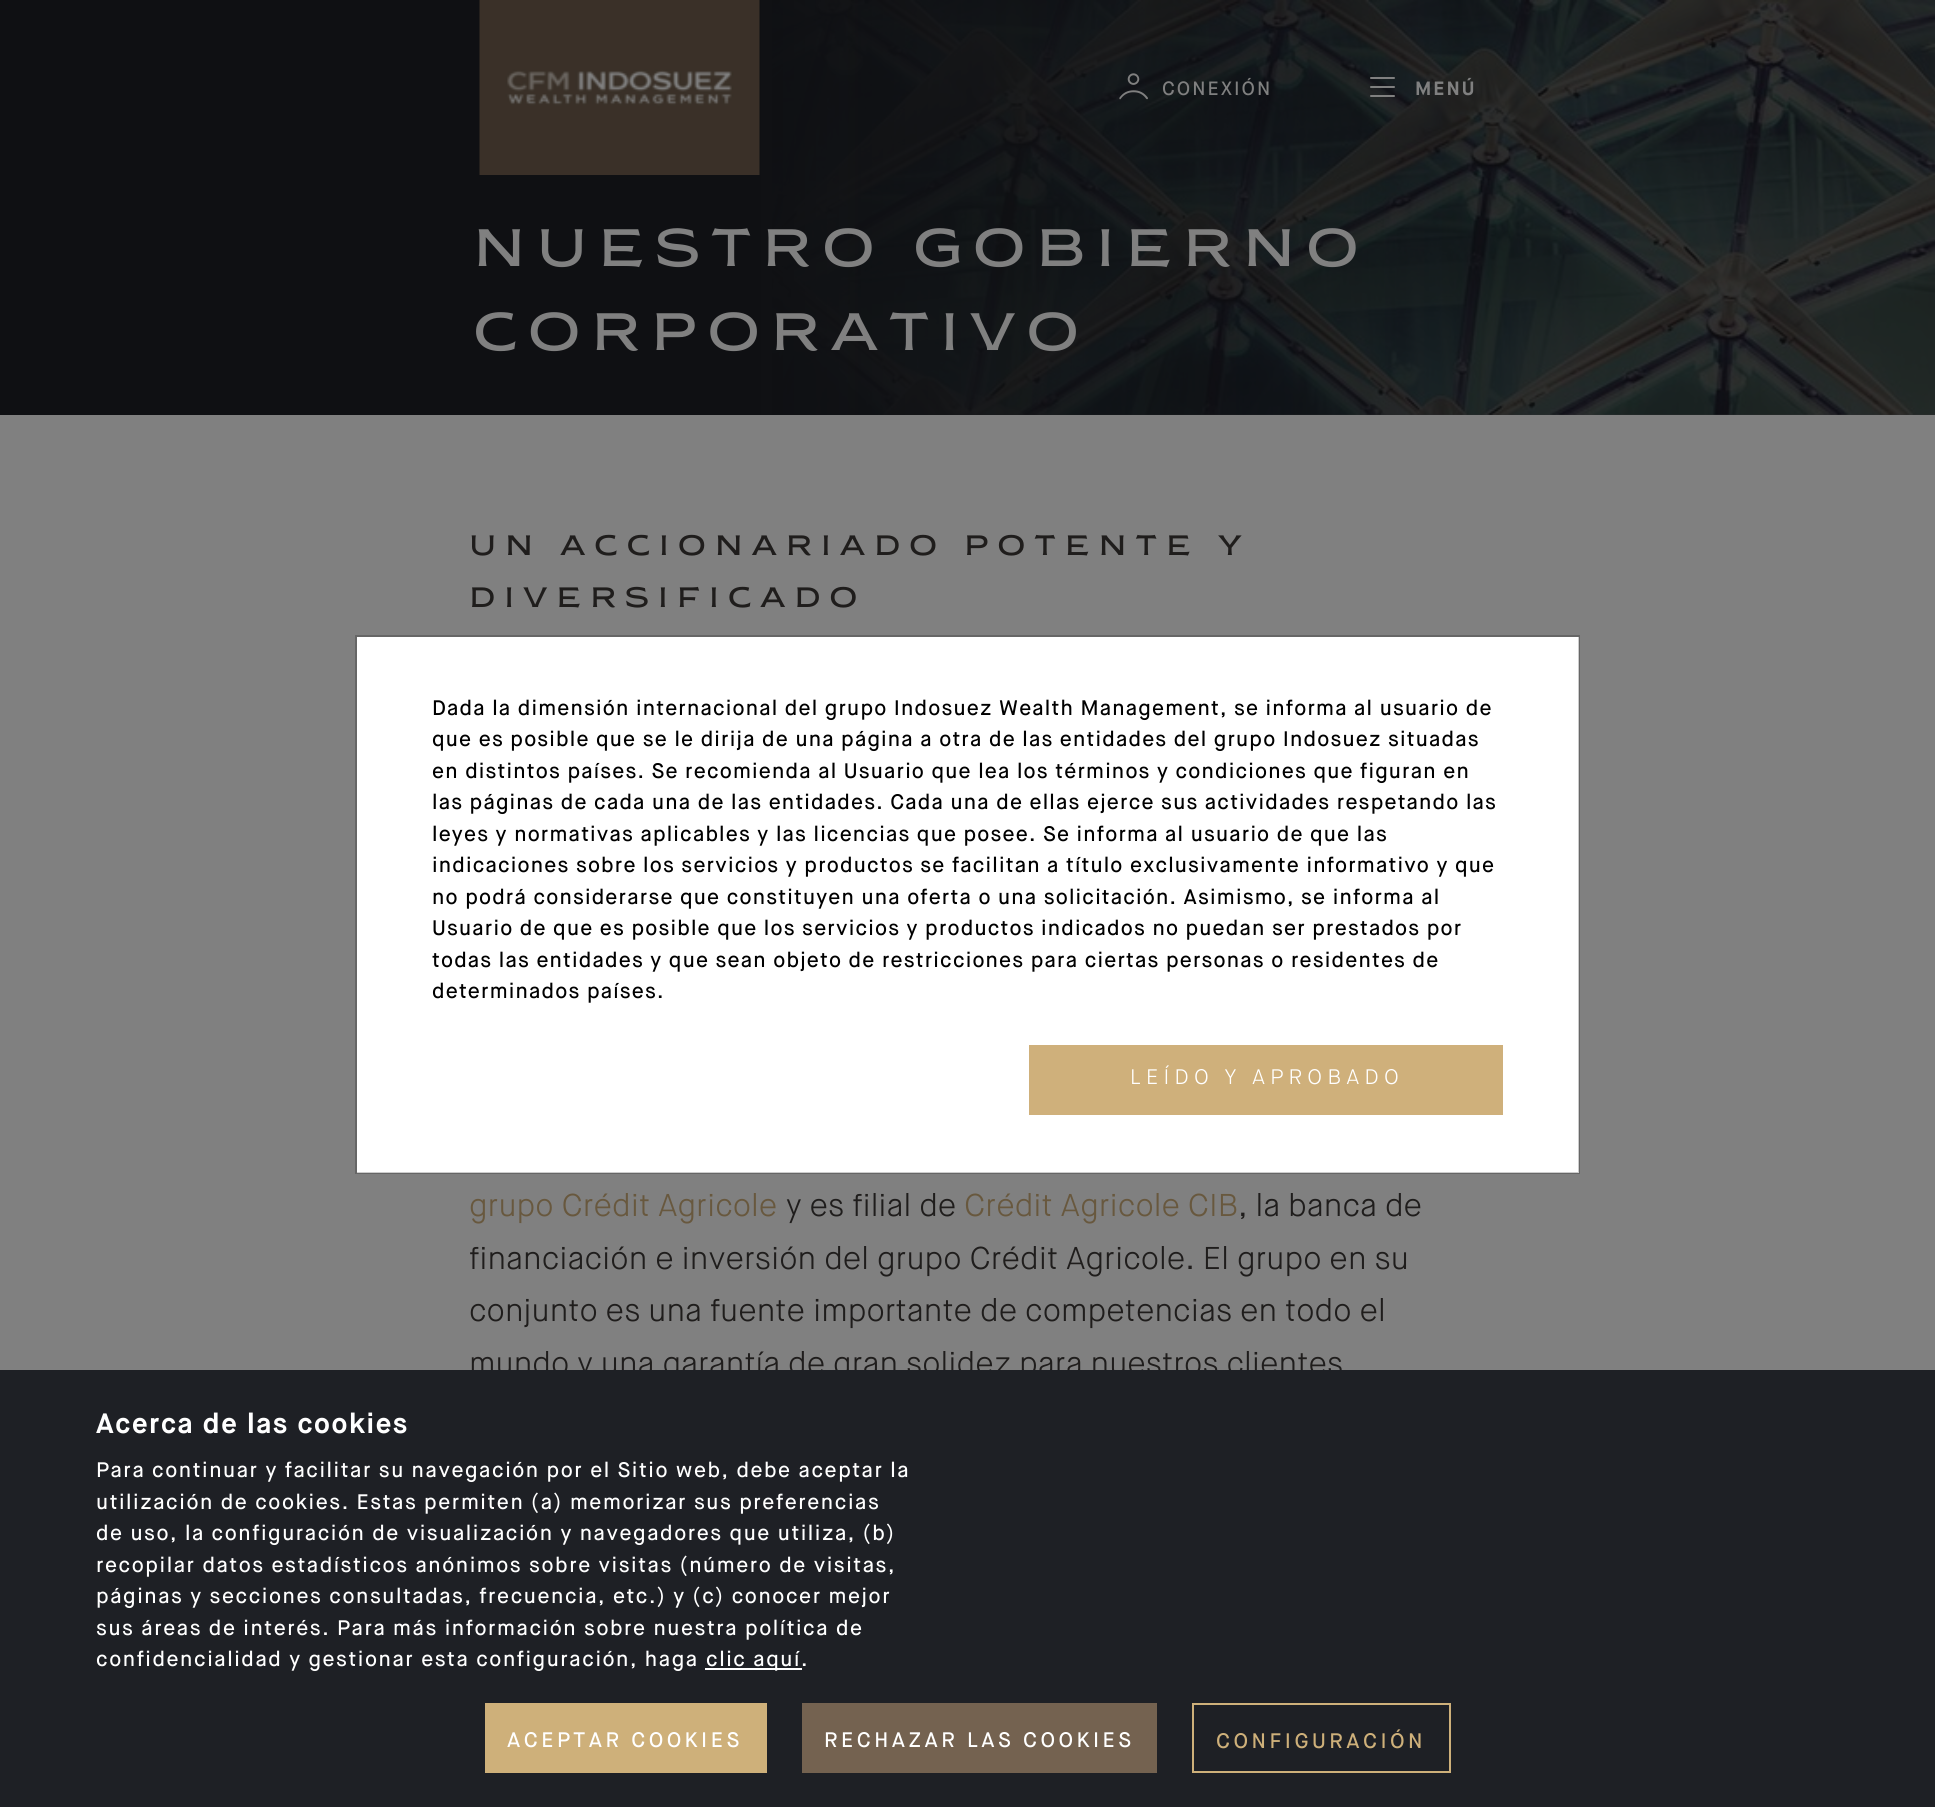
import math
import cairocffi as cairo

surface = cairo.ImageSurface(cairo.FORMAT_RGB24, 1935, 1807)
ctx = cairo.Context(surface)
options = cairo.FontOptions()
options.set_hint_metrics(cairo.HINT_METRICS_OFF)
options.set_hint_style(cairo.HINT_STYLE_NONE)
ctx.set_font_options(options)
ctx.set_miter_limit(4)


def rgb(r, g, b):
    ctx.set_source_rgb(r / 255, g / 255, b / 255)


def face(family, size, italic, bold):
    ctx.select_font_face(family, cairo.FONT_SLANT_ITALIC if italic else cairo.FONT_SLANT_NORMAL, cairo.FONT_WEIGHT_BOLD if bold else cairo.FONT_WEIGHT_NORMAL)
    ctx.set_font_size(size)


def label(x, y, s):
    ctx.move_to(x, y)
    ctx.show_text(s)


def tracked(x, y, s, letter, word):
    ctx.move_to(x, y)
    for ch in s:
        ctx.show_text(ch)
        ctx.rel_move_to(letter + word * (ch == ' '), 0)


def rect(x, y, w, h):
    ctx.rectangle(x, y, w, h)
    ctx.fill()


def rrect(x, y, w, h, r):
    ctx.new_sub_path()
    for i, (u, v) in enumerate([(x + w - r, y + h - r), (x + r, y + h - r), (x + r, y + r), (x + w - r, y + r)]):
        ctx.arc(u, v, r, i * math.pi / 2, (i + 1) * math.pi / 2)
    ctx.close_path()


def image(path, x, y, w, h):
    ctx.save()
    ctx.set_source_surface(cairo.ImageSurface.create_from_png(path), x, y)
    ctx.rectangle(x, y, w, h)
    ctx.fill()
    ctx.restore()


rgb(128, 128, 128)
ctx.paint()
image('image2.png', 772, 0, 1163, 415)
gradient = cairo.LinearGradient(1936, 207, 0, 207)
gradient.add_color_stop_rgba(0.17, 0.059, 0.063, 0.075, 0.7)
gradient.add_color_stop_rgba(0.61, 0.059, 0.063, 0.075, 1)
ctx.set_source(gradient)
rect(0, 0, 1935, 415)
image('image0.png', 479, 0, 281, 175)
image('image1.png', 1119, 73, 29, 27)
face('Maison Neue Medium', 19.25, 0, 0)
rgb(128, 128, 128)
tracked(1162, 95, 'CONEXIÓN', 2, 0)
rrect(1370, 77, 25, 2, 1)
ctx.fill()
rrect(1370, 86, 25, 2, 1)
ctx.fill()
rrect(1370, 95, 25, 2, 1)
ctx.fill()
face('Maison Neue', 19.25, 0, 1)
tracked(1415, 95, 'MENÚ', 2, 0)
face('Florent', 52.5, 0, 0)
tracked(473, 266, 'NUESTRO GOBIERNO', 10.5, 0)
tracked(473, 350, 'CORPORATIVO', 10.5, 0)
face('Florent', 28, 0, 0)
rgb(31, 29, 28)
tracked(469, 555, 'UN ACCIONARIADO POTENTE Y', 8.75, 0)
tracked(469, 607, 'DIVERSIFICADO', 8.75, 0)
face('Maison Neue Light', 31.5, 0, 0)
rgb(104, 88, 62)
label(469, 1216, 'grupo Crédit Agricole')
rgb(31, 29, 28)
label(786, 1216, 'y es filial de')
rgb(104, 88, 62)
label(964, 1216, 'Crédit Agricole CIB')
rgb(31, 29, 28)
label(1238, 1216, ', la banca de')
label(469, 1269, 'financiación e inversión del grupo Crédit Agricole. El grupo en su')
label(469, 1321, 'conjunto es una fuente importante de competencias en todo el')
label(469, 1374, 'mundo y una garantía de gran solidez para nuestros clientes')
rgb(255, 255, 255)
rect(357, 637, 1222, 536)
ctx.rectangle(356, 636, 1223, 537)
ctx.set_source_rgba(0, 0, 0, 0.2)
ctx.stroke()
face('Maison Neue Medium', 21, 0, 0)
rgb(0, 0, 0)
tracked(432, 715, 'Dada la dimensión internacional del grupo Indosuez Wealth Management, se informa al usuario de', 1.17, 0)
tracked(432, 746, 'que es posible que se le dirija de una página a otra de las entidades del grupo Indosuez situadas', 1.17, 0)
tracked(432, 778, 'en distintos países. Se recomienda al Usuario que lea los términos y condiciones que figuran en', 1.17, 0)
tracked(432, 809, 'las páginas de cada una de las entidades. Cada una de ellas ejerce sus actividades respetando las', 1.17, 0)
tracked(432, 841, 'leyes y normativas aplicables y las licencias que posee. Se informa al usuario de que las', 1.17, 0)
tracked(432, 872, 'indicaciones sobre los servicios y productos se facilitan a título exclusivamente informativo y que', 1.17, 0)
tracked(432, 904, 'no podrá considerarse que constituyen una oferta o una solicitación. Asimismo, se informa al', 1.17, 0)
tracked(432, 935, 'Usuario de que es posible que los servicios y productos indicados no puedan ser prestados por', 1.17, 0)
tracked(432, 967, 'todas las entidades y que sean objeto de restricciones para ciertas personas o residentes de', 1.17, 0)
tracked(432, 998, 'determinados países.', 1.17, 0)
rgb(207, 176, 123)
rect(1029, 1045, 474, 70)
face('Maison Neue Light', 21, 0, 0)
rgb(255, 255, 255)
tracked(1130, 1084, 'LEÍDO Y APROBADO', 5.25, 0)
rgb(30, 32, 37)
rect(0, 1370, 1935, 437)
face('Maison Neue', 28, 0, 1)
rgb(255, 255, 255)
tracked(96, 1433, 'Acerca de las cookies', 1.55, 0)
face('Maison Neue Medium', 21, 0, 0)
tracked(96, 1477, 'Para continuar y facilitar su navegación por el Sitio web, debe aceptar la', 1.55, 0)
tracked(96, 1509, 'utilización de cookies. Estas permiten (a) memorizar sus preferencias', 1.55, 0)
tracked(96, 1540, 'de uso, la configuración de visualización y navegadores que utiliza, (b)', 1.55, 0)
tracked(96, 1572, 'recopilar datos estadísticos anónimos sobre visitas (número de visitas,', 1.55, 0)
tracked(96, 1603, 'páginas y secciones consultadas, frecuencia, etc.) y (c) conocer mejor', 1.55, 0)
tracked(96, 1635, 'sus áreas de interés. Para más información sobre nuestra política de', 1.55, 0)
tracked(96, 1666, 'confidencialidad y gestionar esta configuración, haga', 1.55, 0)
rect(705, 1668, 97, 2)
tracked(706, 1666, 'clic aquí.', 1.55, 0)
rgb(206, 176, 122)
rect(485, 1703, 282, 70)
rgb(255, 255, 255)
tracked(507, 1747, 'ACEPTAR COOKIES', 3.5, 0)
rgb(116, 98, 80)
rect(802, 1703, 355, 70)
rgb(255, 255, 255)
tracked(824, 1747, 'RECHAZAR LAS COOKIES', 3.5, 0)
ctx.rectangle(1193, 1704, 257, 68)
rgb(206, 176, 122)
ctx.stroke()
tracked(1216, 1748, 'CONFIGURACIÓN', 3.5, 0)
surface.write_to_png('render.png')
